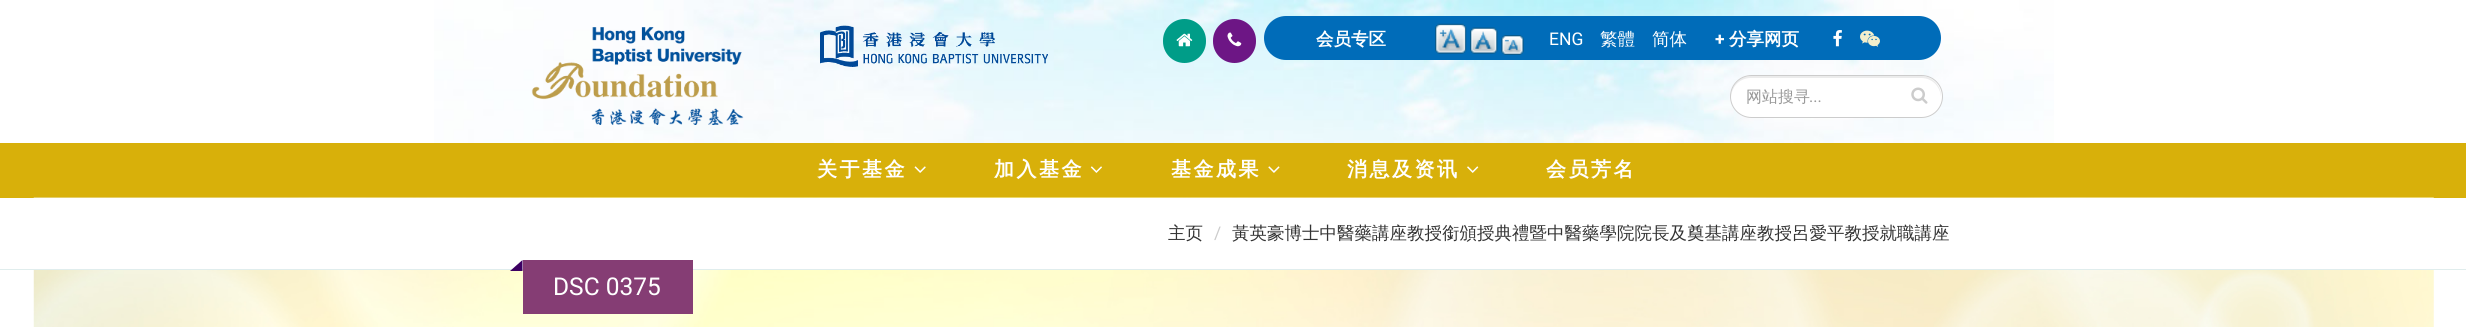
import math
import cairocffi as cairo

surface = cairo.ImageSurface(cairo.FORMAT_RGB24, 2466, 327)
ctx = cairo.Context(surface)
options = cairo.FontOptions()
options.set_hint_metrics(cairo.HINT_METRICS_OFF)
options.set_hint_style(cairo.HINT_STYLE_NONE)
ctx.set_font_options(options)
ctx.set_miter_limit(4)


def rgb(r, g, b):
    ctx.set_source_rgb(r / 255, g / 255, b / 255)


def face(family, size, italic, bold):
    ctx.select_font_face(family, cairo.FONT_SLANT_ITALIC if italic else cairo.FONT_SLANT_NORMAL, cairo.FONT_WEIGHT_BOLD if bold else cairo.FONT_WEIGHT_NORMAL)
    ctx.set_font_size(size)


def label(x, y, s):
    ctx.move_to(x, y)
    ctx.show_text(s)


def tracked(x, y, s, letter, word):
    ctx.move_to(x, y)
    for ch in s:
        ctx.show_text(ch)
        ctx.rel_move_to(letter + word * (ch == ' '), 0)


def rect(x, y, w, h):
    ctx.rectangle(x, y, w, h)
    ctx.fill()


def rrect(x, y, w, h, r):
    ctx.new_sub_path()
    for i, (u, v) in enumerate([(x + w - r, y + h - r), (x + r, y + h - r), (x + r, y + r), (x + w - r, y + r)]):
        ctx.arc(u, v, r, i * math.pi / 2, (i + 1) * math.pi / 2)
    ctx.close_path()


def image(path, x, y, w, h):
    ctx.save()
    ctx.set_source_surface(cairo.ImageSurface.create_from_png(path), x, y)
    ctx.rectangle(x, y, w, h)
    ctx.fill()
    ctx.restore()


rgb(255, 255, 255)
ctx.paint()
image('image0.png', 434, 0, 1620, 143)
image('image1.png', 531, 27, 213, 98)
image('image2.png', 820, 25, 228, 42)
rgb(0, 157, 136)
rrect(1163, 19, 43, 44, 21.5)
ctx.fill()
image('image3.png', 1176, 33, 17, 14)
rgb(109, 22, 133)
rrect(1213, 19, 43, 44, 21.5)
ctx.fill()
image('image4.png', 1227, 32, 15, 15)
rgb(0, 108, 185)
rrect(1264, 16, 677, 44, 22)
ctx.fill()
face('WenQuanYi Zen Hei', 17.5, 0, 1)
rgb(255, 255, 255)
label(1316, 45, '会员专区')
image('image5.png', 1435, 23, 32, 31)
image('image6.png', 1470, 27, 28, 27)
image('image7.png', 1501, 35, 23, 20)
face('Roboto', 17.5, 0, 0)
label(1549, 45, 'ENG')
face('WenQuanYi Zen Hei Medium', 17.5, 0, 0)
label(1600, 45, '繁體')
label(1652, 45, '简体')
face('Roboto', 17.5, 0, 1)
label(1715, 45, '+')
face('WenQuanYi Zen Hei', 17.5, 0, 1)
label(1729, 45, '分享网页')
image('image8.png', 1833, 30, 9, 17)
image('image9.png', 1860, 30, 20, 17)
rrect(1730, 75, 213, 43, 21.5)
ctx.fill()
rgb(236, 236, 236)
ctx.new_path()
ctx.move_to(1751, 78)
ctx.line_to(1921, 78)
ctx.curve_to(1932, 78, 1940, 86, 1941, 97)
ctx.line_to(1941, 96)
ctx.curve_to(1941, 85, 1932, 76, 1921, 76)
ctx.line_to(1751, 76)
ctx.curve_to(1740, 76, 1731, 85, 1731, 96)
ctx.line_to(1731, 97)
ctx.curve_to(1732, 86, 1740, 78, 1751, 78)
ctx.close_path()
ctx.fill()
rrect(1730.5, 75.5, 212, 42, 21)
rgb(204, 204, 204)
ctx.set_line_width(1)
ctx.stroke()
face('WenQuanYi Zen Hei Medium', 16, 0, 0)
rgb(153, 153, 153)
label(1746, 102, '网站搜寻')
face('Roboto', 16, 0, 0)
label(1809, 102, '...')
image('image10.png', 1911, 87, 17, 17)
rgb(216, 176, 10)
rect(0, 143, 2466, 55)
face('WenQuanYi Zen Hei', 20, 0, 1)
rgb(255, 255, 255)
tracked(817, 176, '关于基金', 2.5, 0)
image('image11.png', 914, 166, 12, 7)
tracked(994, 176, '加入基金', 2.5, 0)
image('image12.png', 1090, 166, 12, 7)
tracked(1171, 176, '基金成果', 2.5, 0)
image('image13.png', 1268, 166, 12, 7)
tracked(1347, 176, '消息及资讯', 2.5, 0)
image('image14.png', 1467, 166, 12, 7)
tracked(1546, 176, '会员芳名', 2.5, 0)
image('image15.png', 33, 197, 2401, 130)
rect(33, 198, 2401, 71)
rgb(224, 237, 237)
rect(0, 269, 2466, 1)
face('WenQuanYi Zen Hei Medium', 17.5, 0, 0)
rgb(51, 51, 51)
label(1168, 239, '主页')
face('Roboto', 17.5, 0, 0)
rgb(204, 204, 204)
label(1214, 239, '/')
face('WenQuanYi Zen Hei Medium', 17.5, 0, 0)
rgb(51, 51, 51)
label(1232, 239, '黃英豪博士中醫藥講座教授銜頒授典禮暨中醫藥學院院長及奠基講座教授呂愛平教授就職講座')
rgb(133, 61, 116)
rect(523, 260, 170, 54)
rgb(60, 0, 98)
ctx.new_path()
ctx.move_to(522.5, 260)
ctx.line_to(522.5, 271)
ctx.line_to(510, 271)
ctx.close_path()
ctx.fill()
face('Roboto', 24.5, 0, 0)
rgb(255, 255, 255)
label(553, 295, 'DSC 0375')
surface.write_to_png('render.png')
